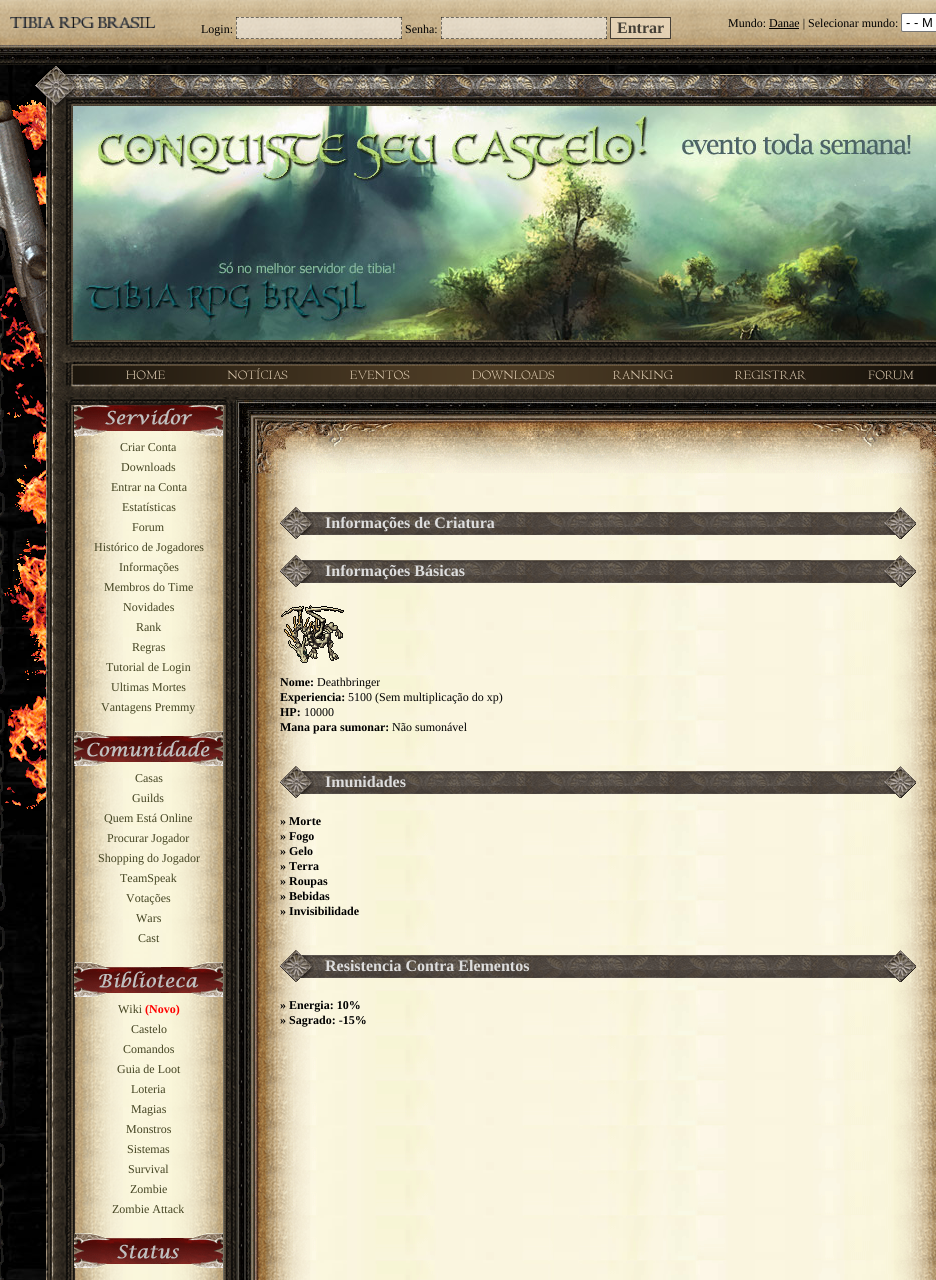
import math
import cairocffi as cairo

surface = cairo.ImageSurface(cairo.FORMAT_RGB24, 936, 1280)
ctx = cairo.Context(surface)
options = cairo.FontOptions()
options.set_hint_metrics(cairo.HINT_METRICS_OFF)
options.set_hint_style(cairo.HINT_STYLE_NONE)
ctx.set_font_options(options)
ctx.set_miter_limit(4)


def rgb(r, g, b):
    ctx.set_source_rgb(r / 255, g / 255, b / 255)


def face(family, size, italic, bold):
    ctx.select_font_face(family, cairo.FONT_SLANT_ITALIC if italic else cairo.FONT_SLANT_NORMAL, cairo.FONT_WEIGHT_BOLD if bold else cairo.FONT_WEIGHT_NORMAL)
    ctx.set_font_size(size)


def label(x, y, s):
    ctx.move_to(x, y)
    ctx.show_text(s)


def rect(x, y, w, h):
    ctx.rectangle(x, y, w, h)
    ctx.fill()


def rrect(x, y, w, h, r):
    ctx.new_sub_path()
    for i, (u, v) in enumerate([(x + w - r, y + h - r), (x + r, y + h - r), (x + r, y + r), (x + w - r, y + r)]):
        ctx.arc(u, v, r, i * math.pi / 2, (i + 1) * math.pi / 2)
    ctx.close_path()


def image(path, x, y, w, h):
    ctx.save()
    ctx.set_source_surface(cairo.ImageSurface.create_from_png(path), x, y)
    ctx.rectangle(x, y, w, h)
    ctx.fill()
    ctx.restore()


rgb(255, 255, 255)
ctx.paint()
image('image0.png', 0, 65, 936, 1215)
image('image1.png', 0, 0, 936, 45)
image('image2.png', 0, 45, 936, 20)
image('image3.png', 10, 17, 145, 11)
face('Liberation Serif', 12, 0, 0)
rgb(0, 0, 0)
label(201, 33, 'Login:')
ctx.set_source_rgba(1, 1, 1, 0.5)
rect(236, 17, 166, 22)
ctx.new_path()
ctx.move_to(236, 17.5)
ctx.line_to(402, 17.5)
ctx.set_source_rgba(0, 0, 0, 0.5)
ctx.set_line_width(1)
ctx.set_dash([3, 1.94])
ctx.stroke()
ctx.new_path()
ctx.move_to(401.5, 17)
ctx.line_to(401.5, 39)
ctx.set_dash([3, 1.75])
ctx.stroke()
ctx.new_path()
ctx.move_to(236, 38.5)
ctx.line_to(402, 38.5)
ctx.set_dash([3, 1.94])
ctx.stroke()
ctx.new_path()
ctx.move_to(236.5, 17)
ctx.line_to(236.5, 39)
ctx.set_dash([3, 1.75])
ctx.stroke()
rgb(0, 0, 0)
label(405, 33, 'Senha:')
ctx.set_source_rgba(1, 1, 1, 0.5)
rect(441, 17, 166, 22)
ctx.new_path()
ctx.move_to(441, 17.5)
ctx.line_to(607, 17.5)
ctx.set_source_rgba(0, 0, 0, 0.5)
ctx.set_dash([3, 1.94])
ctx.stroke()
ctx.new_path()
ctx.move_to(606.5, 17)
ctx.line_to(606.5, 39)
ctx.set_dash([3, 1.75])
ctx.stroke()
ctx.new_path()
ctx.move_to(441, 38.5)
ctx.line_to(607, 38.5)
ctx.set_dash([3, 1.94])
ctx.stroke()
ctx.new_path()
ctx.move_to(441.5, 17)
ctx.line_to(441.5, 39)
ctx.set_dash([3, 1.75])
ctx.stroke()
ctx.set_source_rgba(0.945, 0.878, 0.776, 0.7)
rect(610, 17, 61, 22)
ctx.rectangle(610.5, 17.5, 60, 21)
ctx.set_source_rgba(0, 0, 0, 0.7)
ctx.set_dash([])
ctx.stroke()
face('Liberation Serif', 16, 0, 1)
rgb(68, 63, 54)
label(617, 33, 'Entrar')
face('Liberation Serif', 12, 0, 0)
rgb(0, 0, 0)
label(728, 27, 'Mundo: Danae | Selecionar mundo:')
rgb(255, 255, 255)
rrect(901.5, 13.5, 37, 18, 1.5)
ctx.fill_preserve()
rgb(118, 118, 118)
ctx.stroke()
face('Liberation Sans', 13, 0, 0)
rgb(0, 0, 0)
label(906, 27, '- - M')
rect(769, 28, 30, 1)
image('image4.png', 0, 100, 46, 709)
image('image5.png', 0, 100, 6, 1180)
image('image7.png', 35, 66, 46, 40)
image('image6.png', 0, 100, 46, 277)
image('image8.png', 81, 74, 855, 32)
image('image9.png', 46, 106, 27, 234)
image('image10.png', 73, 106, 863, 234)
image('image11.png', 46, 340, 890, 22)
image('image12.png', 46, 362, 26, 22)
image('image13.png', 72, 362, 122, 22)
image('image14.png', 194, 362, 130, 22)
image('image15.png', 324, 362, 121, 22)
image('image16.png', 445, 362, 142, 22)
image('image17.png', 587, 362, 119, 22)
image('image18.png', 706, 362, 130, 22)
image('image19.png', 836, 362, 100, 22)
image('image20.png', 46, 384, 460, 16)
image('image21.png', 506, 384, 430, 16)
image('image22.png', 46, 400, 20, 880)
image('image23.png', 66, 400, 165, 37)
image('image24.png', 231, 418, 19, 19)
image('image25.png', 231, 400, 19, 18)
image('image26.png', 250, 400, 686, 37)
image('image27.png', 66, 437, 165, 843)
face('Liberation Serif', 12, 0, 0)
rgb(68, 68, 34)
label(120, 451, 'Criar Conta')
label(121, 471, 'Downloads')
label(111, 491, 'Entrar na Conta')
label(122, 511, 'Estatísticas')
label(132, 531, 'Forum')
label(94, 551, 'Histórico de Jogadores')
label(119, 571, 'Informações')
label(104, 591, 'Membros do Time')
label(123, 611, 'Novidades')
label(136, 631, 'Rank')
label(132, 651, 'Regras')
label(106, 671, 'Tutorial de Login')
label(111, 691, 'Ultimas Mortes')
label(101, 711, 'Vantagens Premmy')
image('image28.png', 66, 729, 165, 39)
label(135, 782, 'Casas')
label(132, 802, 'Guilds')
label(104, 822, 'Quem Está Online')
label(107, 842, 'Procurar Jogador')
label(98, 862, 'Shopping do Jogador')
label(120, 882, 'TeamSpeak')
label(126, 902, 'Votações')
label(136, 922, 'Wars')
label(138, 942, 'Cast')
image('image29.png', 66, 960, 165, 39)
label(118, 1013, 'Wiki')
face('Liberation Serif', 12, 0, 1)
rgb(255, 0, 0)
label(145, 1013, '(Novo)')
face('Liberation Serif', 12, 0, 0)
rgb(68, 68, 34)
label(131, 1033, 'Castelo')
label(123, 1053, 'Comandos')
label(117, 1073, 'Guia de Loot')
label(131, 1093, 'Loteria')
label(131, 1113, 'Magias')
label(126, 1133, 'Monstros')
label(127, 1153, 'Sistemas')
label(128, 1173, 'Survival')
label(130, 1193, 'Zombie')
label(112, 1213, 'Zombie Attack')
image('image30.png', 66, 1231, 165, 39)
image('image31.png', 231, 437, 19, 19)
image('image32.png', 250, 479, 686, 801)
image('image33.png', 250, 437, 686, 42)
image('image34.png', 280, 507, 636, 32)
face('Liberation Serif', 16, 0, 1)
rgb(221, 221, 221)
label(325, 528, 'Informações de Criatura')
image('image35.png', 280, 555, 636, 32)
label(325, 576, 'Informações Básicas')
image('image36.png', 281, 605, 63, 58)
face('Liberation Serif', 12, 0, 1)
rgb(0, 0, 0)
label(280, 686, 'Nome:')
face('Liberation Serif', 12, 0, 0)
label(317, 686, 'Deathbringer')
face('Liberation Serif', 12, 0, 1)
label(280, 701, 'Experiencia:')
face('Liberation Serif', 12, 0, 0)
label(348, 701, '5100 (Sem multiplicação do xp)')
face('Liberation Serif', 12, 0, 1)
label(280, 716, 'HP:')
face('Liberation Serif', 12, 0, 0)
label(304, 716, '10000')
face('Liberation Serif', 12, 0, 1)
label(280, 731, 'Mana para sumonar:')
face('Liberation Serif', 12, 0, 0)
label(392, 731, 'Não sumonável')
image('image37.png', 280, 766, 636, 32)
face('Liberation Serif', 16, 0, 1)
rgb(221, 221, 221)
label(325, 787, 'Imunidades')
face('Liberation Serif', 12, 0, 1)
rgb(0, 0, 0)
label(280, 825, '» Morte')
label(280, 840, '» Fogo')
label(280, 855, '» Gelo')
label(280, 870, '» Terra')
label(280, 885, '» Roupas')
label(280, 900, '» Bebidas')
label(280, 915, '» Invisibilidade')
image('image38.png', 280, 950, 636, 32)
face('Liberation Serif', 16, 0, 1)
rgb(221, 221, 221)
label(325, 971, 'Resistencia Contra Elementos')
face('Liberation Serif', 12, 0, 1)
rgb(0, 0, 0)
label(280, 1009, '» Energia: 10%')
label(280, 1024, '» Sagrado: -15%')
image('image39.png', 231, 456, 19, 824)
surface.write_to_png('render.png')
